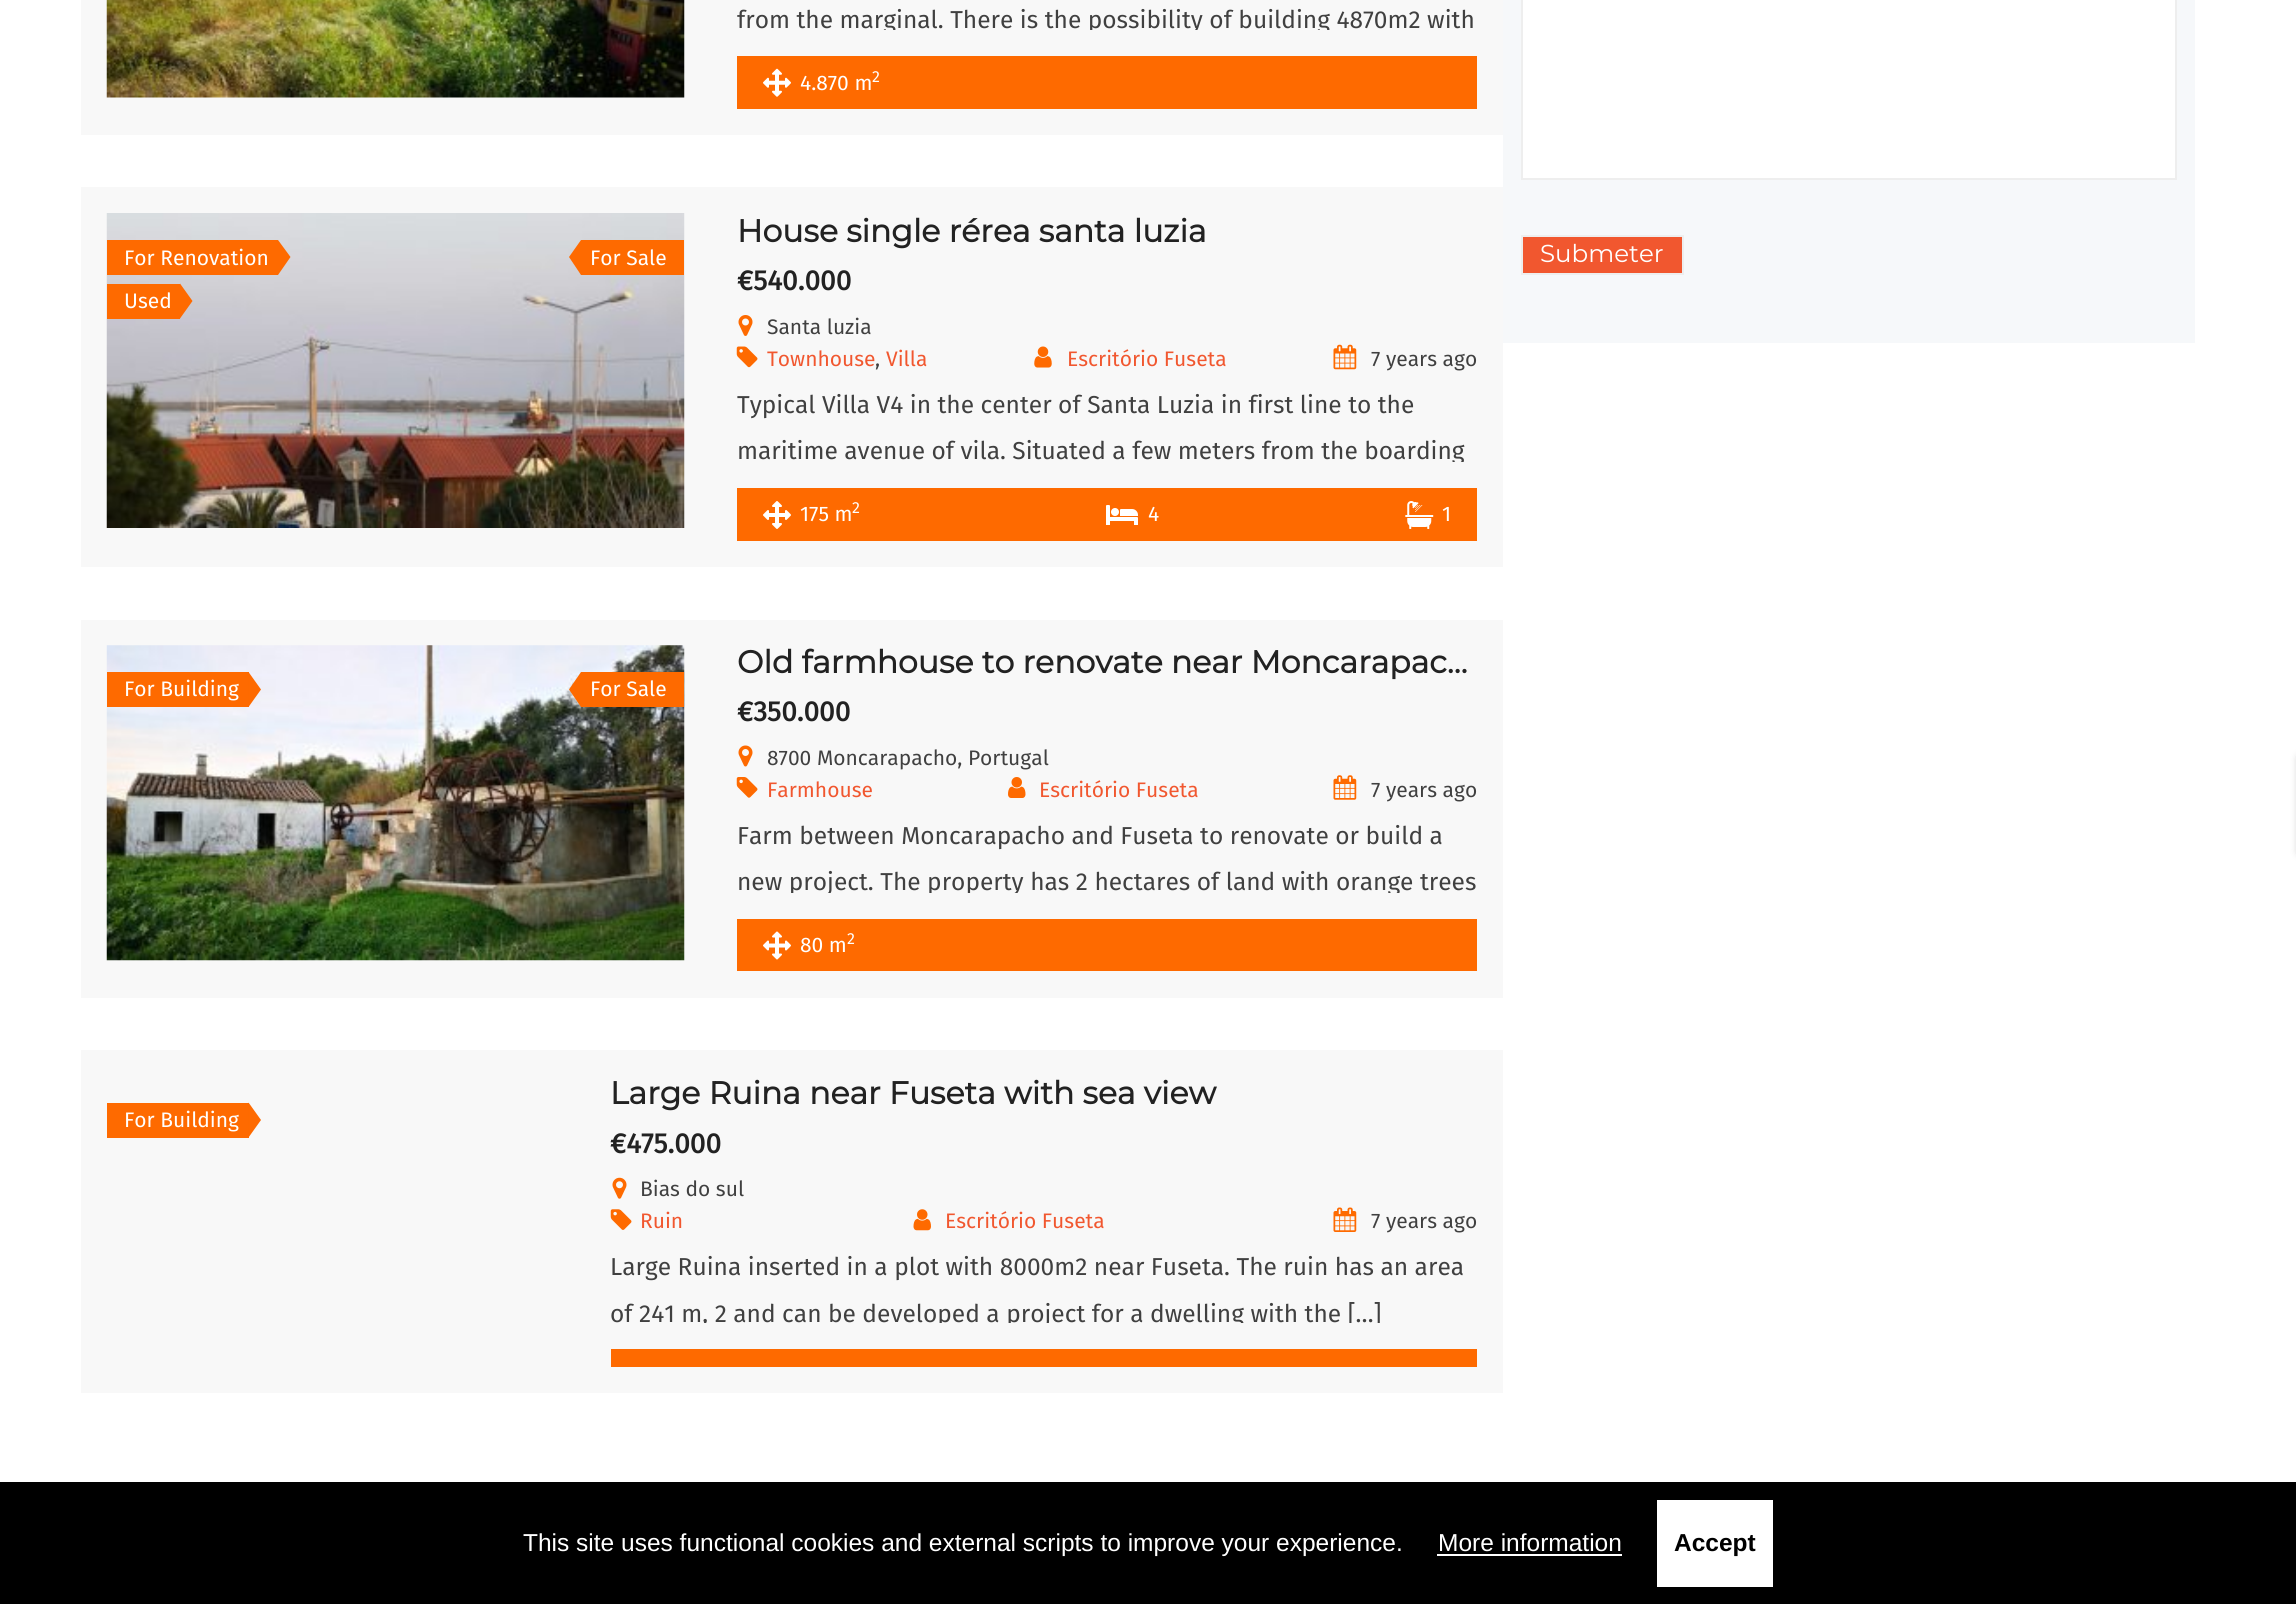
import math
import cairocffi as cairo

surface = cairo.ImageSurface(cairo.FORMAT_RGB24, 2296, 1604)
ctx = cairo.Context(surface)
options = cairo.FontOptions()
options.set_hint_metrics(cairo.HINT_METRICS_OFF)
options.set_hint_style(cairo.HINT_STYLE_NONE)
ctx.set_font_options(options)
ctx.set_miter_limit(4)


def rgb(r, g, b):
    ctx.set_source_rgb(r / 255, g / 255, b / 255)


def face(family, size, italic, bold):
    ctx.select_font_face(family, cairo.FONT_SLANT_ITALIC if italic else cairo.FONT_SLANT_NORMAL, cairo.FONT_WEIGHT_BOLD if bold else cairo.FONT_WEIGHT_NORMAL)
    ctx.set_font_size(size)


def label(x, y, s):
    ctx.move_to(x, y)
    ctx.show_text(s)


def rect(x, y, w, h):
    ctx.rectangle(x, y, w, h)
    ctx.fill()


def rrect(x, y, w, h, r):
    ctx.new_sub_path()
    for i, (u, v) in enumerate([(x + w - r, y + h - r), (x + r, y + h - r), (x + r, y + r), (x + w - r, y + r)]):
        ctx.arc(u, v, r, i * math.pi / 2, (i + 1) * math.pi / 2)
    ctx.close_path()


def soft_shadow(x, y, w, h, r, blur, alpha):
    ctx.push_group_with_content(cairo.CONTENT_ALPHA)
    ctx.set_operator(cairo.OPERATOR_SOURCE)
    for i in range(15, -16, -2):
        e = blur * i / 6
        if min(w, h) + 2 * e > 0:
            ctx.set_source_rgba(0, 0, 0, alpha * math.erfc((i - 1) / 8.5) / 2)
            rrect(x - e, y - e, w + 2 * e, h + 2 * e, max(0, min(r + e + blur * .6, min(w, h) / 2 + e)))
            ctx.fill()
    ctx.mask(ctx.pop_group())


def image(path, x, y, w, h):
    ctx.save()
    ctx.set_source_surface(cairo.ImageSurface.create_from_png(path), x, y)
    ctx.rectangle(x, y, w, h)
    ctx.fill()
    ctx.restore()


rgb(255, 255, 255)
ctx.paint()
rgb(248, 248, 248)
rect(81, 0, 1422, 135)
image('image0.png', 106, 0, 579, 98)
ctx.save()
ctx.rectangle(737, 0, 740, 30)
ctx.clip()
face('Fira Sans', 24.5, 0, 0)
rgb(64, 64, 64)
label(737, 28, 'from the marginal. There is the possibility of building 4870m2 with')
ctx.restore()
rgb(254, 106, 0)
rect(737, 56, 740, 53)
image('image1.png', 763, 68, 28, 29)
face('Fira Sans', 21, 0, 0)
rgb(255, 255, 255)
label(800, 90, '4.870 m')
face('Fira Sans', 16, 0, 0)
label(872, 82, '2')
rgb(248, 248, 248)
rect(81, 187, 1422, 380)
image('image2.png', 106, 213, 579, 315)
rgb(254, 106, 0)
rect(107, 240, 171, 35)
face('Fira Sans', 21, 0, 0)
rgb(255, 255, 255)
label(124, 265, 'For Renovation')
rgb(254, 106, 0)
ctx.new_path()
ctx.move_to(278, 275)
ctx.line_to(278, 240)
ctx.line_to(290.5, 257)
ctx.close_path()
ctx.fill()
rect(107, 284, 73, 35)
rgb(255, 255, 255)
label(124, 308, 'Used')
rgb(254, 106, 0)
ctx.new_path()
ctx.move_to(180, 318.5)
ctx.line_to(180, 283.5)
ctx.line_to(192.5, 301)
ctx.close_path()
ctx.fill()
rect(581, 240, 103, 35)
ctx.new_path()
ctx.move_to(581, 240)
ctx.line_to(581, 275)
ctx.line_to(569, 257)
ctx.close_path()
ctx.fill()
rgb(255, 255, 255)
label(590, 265, 'For Sale')
face('Montserrat', 31.5, 0, 1)
rgb(34, 34, 34)
label(737, 242, 'House single rérea santa luzia')
face('Fira Sans', 28, 0, 1)
label(737, 290, '€540.000')
image('image3.png', 738, 315, 15, 21)
face('Fira Sans', 21, 0, 0)
rgb(64, 64, 64)
label(767, 334, 'Santa luzia')
image('image4.png', 736, 346, 22, 22)
rgb(241, 87, 47)
label(767, 366, 'Townhouse')
rgb(64, 64, 64)
label(875, 366, ',')
rgb(241, 87, 47)
label(886, 366, 'Villa')
image('image5.png', 1034, 346, 18, 22)
label(1067, 366, 'Escritório Fuseta')
image('image6.png', 1333, 344, 24, 26)
rgb(64, 64, 64)
label(1371, 366, '7 years ago')
face('Fira Sans', 24.5, 0, 0)
label(737, 413, 'Typical Villa V4 in the center of Santa Luzia in first line to the')
ctx.save()
ctx.rectangle(737, 383, 740, 79)
ctx.clip()
label(737, 459, 'maritime avenue of vila. Situated a few meters from the boarding')
ctx.restore()
rgb(254, 106, 0)
rect(737, 488, 740, 53)
image('image7.png', 763, 501, 28, 28)
face('Fira Sans', 21, 0, 0)
rgb(255, 255, 255)
label(800, 521, '175 m')
face('Fira Sans', 16, 0, 0)
label(852, 513, '2')
image('image8.png', 1106, 505, 32, 20)
face('Fira Sans', 21, 0, 0)
label(1148, 521, '4')
image('image9.png', 1405, 501, 29, 28)
label(1442, 521, '1')
rgb(248, 248, 248)
rect(81, 620, 1422, 378)
image('image10.png', 106, 645, 579, 316)
rgb(254, 106, 0)
rect(107, 672, 142, 35)
rgb(255, 255, 255)
label(124, 696, 'For Building')
rgb(254, 106, 0)
ctx.new_path()
ctx.move_to(248.5, 707)
ctx.line_to(248.5, 672)
ctx.line_to(261, 689.5)
ctx.close_path()
ctx.fill()
rect(581, 672, 103, 35)
ctx.new_path()
ctx.move_to(581, 672)
ctx.line_to(581, 707)
ctx.line_to(569, 689.5)
ctx.close_path()
ctx.fill()
rgb(255, 255, 255)
label(590, 696, 'For Sale')
face('Montserrat', 31.5, 0, 1)
rgb(34, 34, 34)
label(737, 673, 'Old farmhouse to renovate near Moncarapac…')
face('Fira Sans', 28, 0, 1)
label(737, 721, '€350.000')
image('image11.png', 738, 745, 15, 22)
face('Fira Sans', 21, 0, 0)
rgb(64, 64, 64)
label(767, 765, '8700 Moncarapacho, Portugal')
image('image12.png', 736, 777, 22, 21)
rgb(241, 87, 47)
label(767, 797, 'Farmhouse')
image('image13.png', 1008, 777, 18, 21)
label(1039, 797, 'Escritório Fuseta')
image('image14.png', 1333, 775, 24, 25)
rgb(64, 64, 64)
label(1371, 797, '7 years ago')
face('Fira Sans', 24.5, 0, 0)
label(737, 844, 'Farm between Moncarapacho and Fuseta to renovate or build a')
ctx.save()
ctx.rectangle(737, 814, 740, 79)
ctx.clip()
label(737, 890, 'new project. The property has 2 hectares of land with orange trees')
ctx.restore()
rgb(254, 106, 0)
rect(737, 919, 740, 52)
image('image15.png', 763, 931, 28, 29)
face('Fira Sans', 21, 0, 0)
rgb(255, 255, 255)
label(800, 952, '80 m')
face('Fira Sans', 16, 0, 0)
label(847, 944, '2')
rgb(248, 248, 248)
rect(81, 1050, 1422, 343)
rgb(254, 106, 0)
rect(107, 1103, 142, 35)
face('Fira Sans', 21, 0, 0)
rgb(255, 255, 255)
label(124, 1127, 'For Building')
rgb(254, 106, 0)
ctx.new_path()
ctx.move_to(248.5, 1137.5)
ctx.line_to(248.5, 1102.5)
ctx.line_to(261, 1120)
ctx.close_path()
ctx.fill()
face('Montserrat', 31.5, 0, 1)
rgb(34, 34, 34)
label(610, 1104, 'Large Ruina near Fuseta with sea view')
face('Fira Sans', 28, 0, 1)
label(610, 1153, '€475.000')
image('image16.png', 612, 1177, 15, 22)
face('Fira Sans', 21, 0, 0)
rgb(64, 64, 64)
label(640, 1196, 'Bias do sul')
image('image17.png', 610, 1209, 22, 21)
rgb(241, 87, 47)
label(640, 1228, 'Ruin')
image('image18.png', 913, 1209, 18, 22)
label(945, 1228, 'Escritório Fuseta')
image('image19.png', 1333, 1207, 24, 25)
rgb(64, 64, 64)
label(1371, 1228, '7 years ago')
face('Fira Sans', 24.5, 0, 0)
label(610, 1275, 'Large Ruina inserted in a plot with 8000m2 near Fuseta. The ruin has an area')
ctx.save()
ctx.rectangle(611, 1246, 866, 77)
ctx.clip()
label(610, 1322, 'of 241 m, 2 and can be developed a project for a dwelling with the […]')
ctx.restore()
rgb(254, 106, 0)
rect(611, 1349, 866, 18)
rgb(246, 248, 250)
rect(1503, 0, 692, 343)
rgb(255, 255, 255)
ctx.rectangle(1522, -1, 654, 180)
ctx.fill_preserve()
rgb(238, 238, 238)
ctx.stroke()
rgb(241, 87, 47)
ctx.rectangle(1522, 236, 161, 38)
ctx.fill_preserve()
rgb(238, 238, 238)
ctx.stroke()
face('Montserrat Thin', 24.5, 0, 0)
rgb(255, 255, 255)
label(1540, 262, 'Submeter')
rgb(119, 119, 119)
soft_shadow(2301, 758, 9, 94, 0, 4.5, 1)
rgb(0, 0, 0)
rect(0, 1482, 2296, 122)
face('Liberation Sans', 24.5, 0, 0)
rgb(255, 255, 255)
label(523, 1551, 'This site uses functional cookies and external scripts to improve your experience.')
label(1438, 1551, 'More information')
rect(1437, 1554, 185, 2)
rect(1657, 1500, 116, 87)
face('Liberation Sans', 24.5, 0, 1)
rgb(0, 0, 0)
label(1674, 1551, 'Accept')
surface.write_to_png('render.png')
